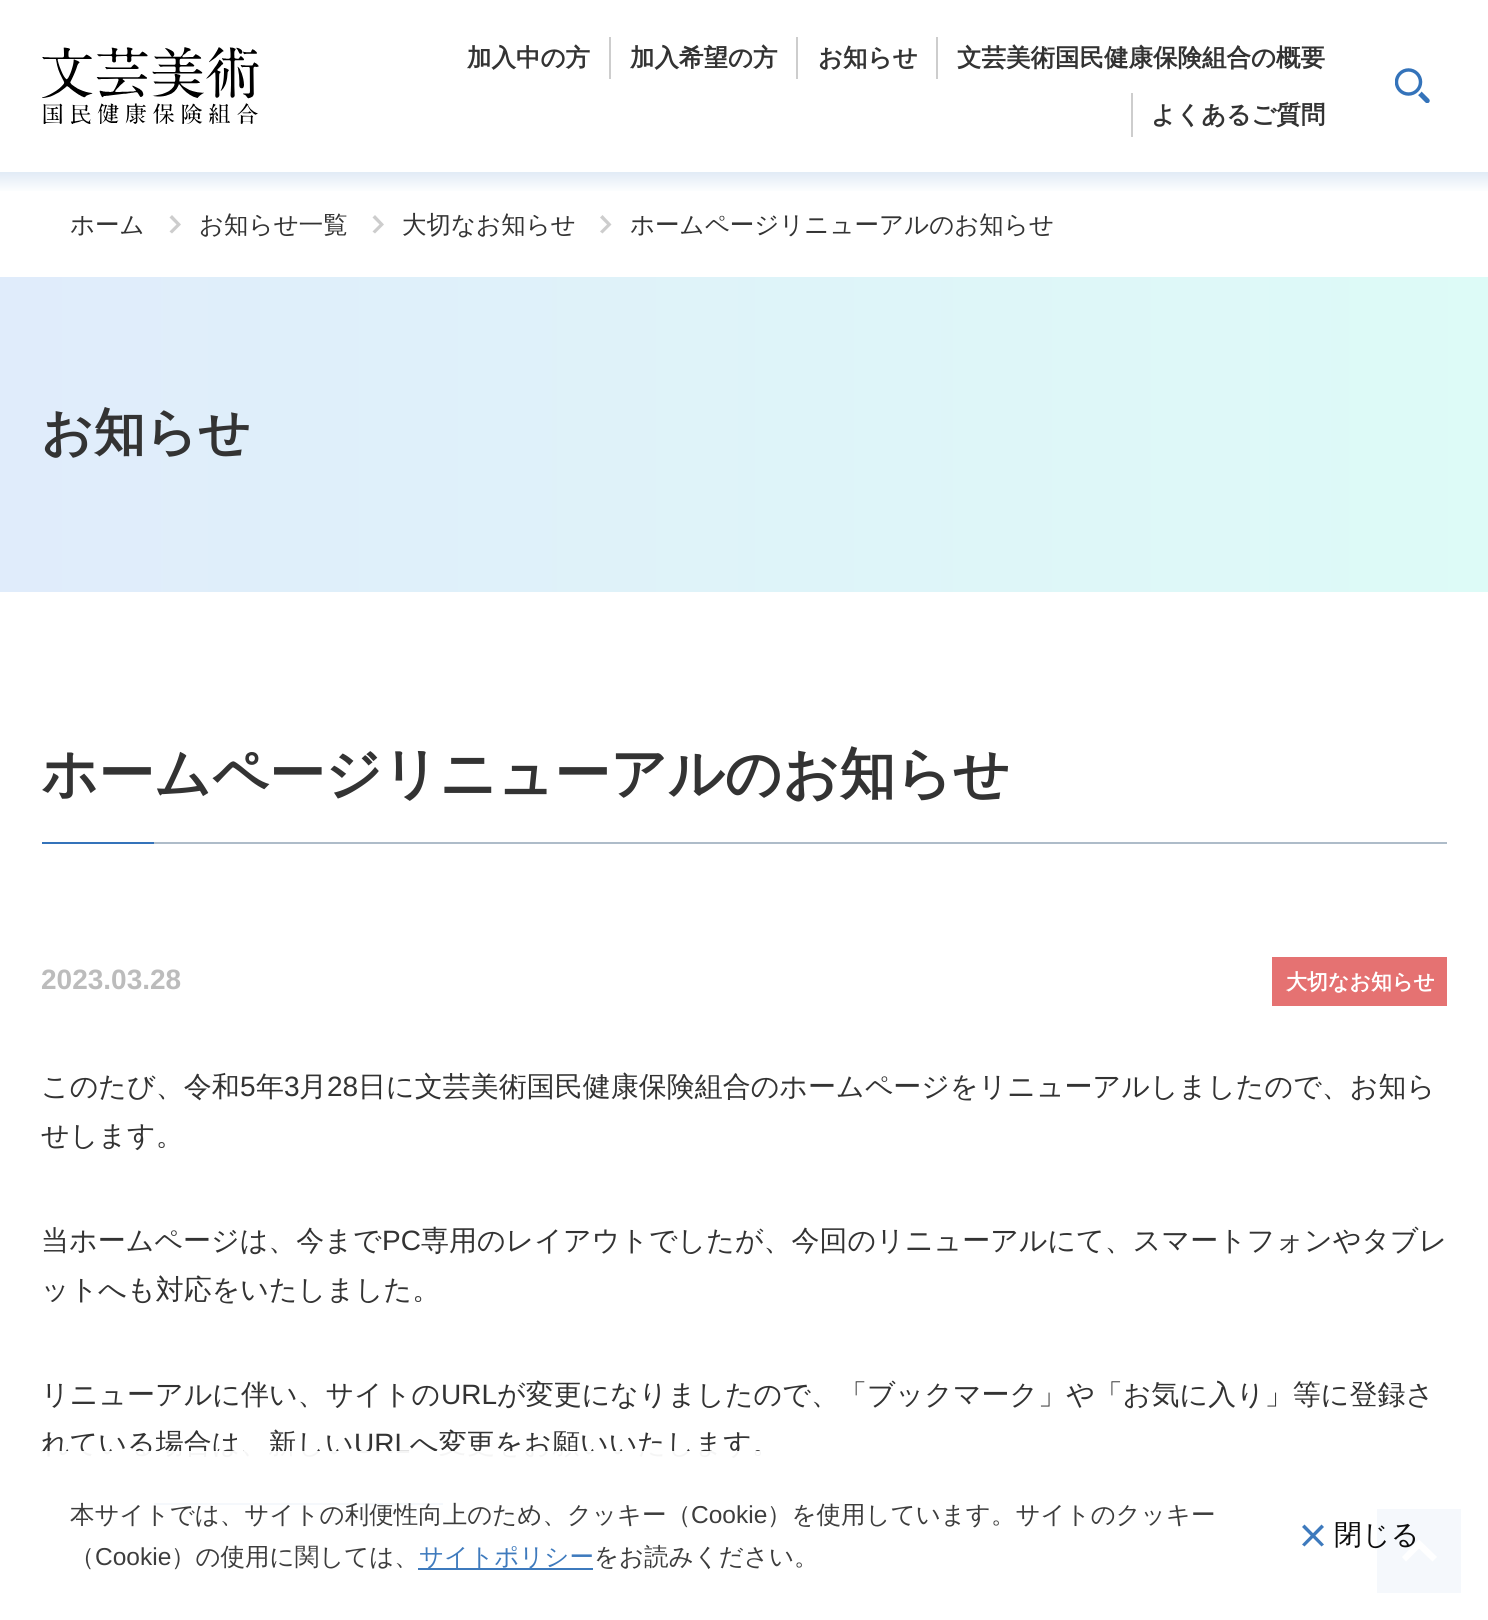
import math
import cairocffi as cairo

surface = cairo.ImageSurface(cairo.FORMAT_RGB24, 1488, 1620)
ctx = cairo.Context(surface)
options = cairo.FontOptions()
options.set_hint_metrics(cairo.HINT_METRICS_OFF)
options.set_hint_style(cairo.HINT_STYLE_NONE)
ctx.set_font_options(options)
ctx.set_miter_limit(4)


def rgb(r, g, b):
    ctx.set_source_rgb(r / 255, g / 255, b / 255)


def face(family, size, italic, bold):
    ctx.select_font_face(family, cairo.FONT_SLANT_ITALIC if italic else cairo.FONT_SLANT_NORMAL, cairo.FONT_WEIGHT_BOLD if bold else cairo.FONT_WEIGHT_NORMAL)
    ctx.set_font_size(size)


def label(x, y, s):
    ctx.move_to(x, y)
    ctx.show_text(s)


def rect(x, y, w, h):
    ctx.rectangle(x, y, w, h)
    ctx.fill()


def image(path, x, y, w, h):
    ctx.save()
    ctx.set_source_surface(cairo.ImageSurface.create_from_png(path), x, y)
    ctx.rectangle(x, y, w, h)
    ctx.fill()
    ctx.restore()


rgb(255, 255, 255)
ctx.paint()
image('image0.png', 42, 47, 217, 77)
face('WenQuanYi Zen Hei', 24.5, 0, 1)
rgb(51, 51, 51)
label(467, 66, '加入中の方')
rgb(205, 205, 205)
rect(609, 37, 2, 42)
rgb(51, 51, 51)
label(630, 66, '加入希望の方')
rgb(205, 205, 205)
rect(796, 37, 2, 42)
rgb(51, 51, 51)
label(818, 66, 'お知らせ')
rgb(205, 205, 205)
rect(936, 37, 2, 42)
rgb(51, 51, 51)
label(957, 66, '文芸美術国民健康保険組合の概要')
rgb(205, 205, 205)
rect(1131, 93, 2, 44)
rgb(51, 51, 51)
label(1151, 123, 'よくあるご質問')
image('image1.png', 1395, 68, 35, 35)
gradient = cairo.LinearGradient(745, 171, 745, 193)
gradient.add_color_stop_rgba(0, 0.878, 0.918, 0.961, 1)
gradient.add_color_stop_rgba(1, 1, 1, 1, 1)
ctx.set_source(gradient)
rect(0, 172, 1488, 19)
face('WenQuanYi Zen Hei Medium', 24.5, 0, 0)
rgb(51, 51, 51)
label(70, 233, 'ホーム')
rgb(205, 205, 205)
ctx.new_path()
ctx.move_to(172, 215)
ctx.line_to(169.5, 217.5)
ctx.line_to(176.5, 224.5)
ctx.line_to(169.5, 231.5)
ctx.line_to(172, 233.5)
ctx.line_to(181, 224.5)
ctx.close_path()
ctx.fill()
rgb(51, 51, 51)
label(199, 233, 'お知らせ一覧')
rgb(205, 205, 205)
ctx.new_path()
ctx.move_to(375, 215)
ctx.line_to(372.5, 217.5)
ctx.line_to(379.5, 224.5)
ctx.line_to(372.5, 231.5)
ctx.line_to(375, 233.5)
ctx.line_to(384, 224.5)
ctx.close_path()
ctx.fill()
rgb(51, 51, 51)
label(402, 233, '大切なお知らせ')
rgb(205, 205, 205)
ctx.new_path()
ctx.move_to(602.5, 215)
ctx.line_to(600, 217.5)
ctx.line_to(607, 224.5)
ctx.line_to(600, 231.5)
ctx.line_to(602.5, 233.5)
ctx.line_to(611.5, 224.5)
ctx.close_path()
ctx.fill()
rgb(51, 51, 51)
label(630, 233, 'ホームページリニューアルのお知らせ')
gradient = cairo.LinearGradient(0, 434, 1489, 434)
gradient.add_color_stop_rgba(0, 0.878, 0.925, 0.984, 1)
gradient.add_color_stop_rgba(1, 0.867, 0.984, 0.969, 1)
ctx.set_source(gradient)
rect(0, 277, 1488, 315)
face('WenQuanYi Zen Hei', 51.5, 0, 1)
rgb(51, 51, 51)
label(41, 450, 'お知らせ')
face('WenQuanYi Zen Hei', 56, 0, 1)
label(41, 793, 'ホームページリニューアルのお知らせ')
rgb(52, 115, 186)
rect(42, 842, 112, 2)
rgb(174, 188, 201)
rect(154, 842, 1293, 2)
face('Liberation Sans', 28, 0, 1)
rgb(188, 188, 188)
label(41, 989, '2023.03.28')
rgb(229, 114, 114)
rect(1272, 957, 175, 49)
face('WenQuanYi Zen Hei', 21, 0, 1)
rgb(255, 255, 255)
label(1286, 989, '大切なお知らせ')
face('WenQuanYi Zen Hei Medium', 28, 0, 0)
rgb(51, 51, 51)
label(41, 1096, 'このたび、令和')
face('Liberation Sans', 28, 0, 0)
label(240, 1096, '5')
face('WenQuanYi Zen Hei Medium', 28, 0, 0)
label(256, 1096, '年')
face('Liberation Sans', 28, 0, 0)
label(284, 1096, '3')
face('WenQuanYi Zen Hei Medium', 28, 0, 0)
label(299, 1096, '月')
face('Liberation Sans', 28, 0, 0)
label(327, 1096, '28')
face('WenQuanYi Zen Hei Medium', 28, 0, 0)
label(358, 1096, '日に文芸美術国民健康保険組合のホームページをリニューアルしましたので、お知ら')
label(41, 1145, 'せします。')
label(41, 1250, '当ホームページは、今まで')
face('Liberation Sans', 28, 0, 0)
label(382, 1250, 'PC')
face('WenQuanYi Zen Hei Medium', 28, 0, 0)
label(421, 1250, '専用のレイアウトでしたが、今回のリニューアルにて、スマートフォンやタブレ')
label(41, 1299, 'ットへも対応をいたしました。')
label(41, 1404, 'リニューアルに伴い、サイトの')
face('Liberation Sans', 28, 0, 0)
label(441, 1404, 'URL')
face('WenQuanYi Zen Hei Medium', 28, 0, 0)
label(497, 1404, 'が変更になりましたので、「ブックマーク」や「お気に入り」等に登録さ')
label(41, 1453, 'れている場合は、新しい')
face('Liberation Sans', 28, 0, 0)
label(354, 1453, 'URL')
face('WenQuanYi Zen Hei Medium', 28, 0, 0)
label(410, 1453, 'へ変更をお願いいたします。')
rgb(52, 115, 186)
rect(154, 1503, 289, 2)
rect(1377, 1509, 84, 84)
rgb(255, 255, 255)
ctx.new_path()
ctx.move_to(1402, 1557)
ctx.line_to(1406, 1561.5)
ctx.line_to(1419, 1548.5)
ctx.line_to(1432.5, 1561.5)
ctx.line_to(1437, 1557)
ctx.line_to(1419, 1539.5)
ctx.close_path()
ctx.fill()
ctx.set_source_rgba(1, 1, 1, 0.95)
rect(42, 1451, 1419, 142)
face('WenQuanYi Zen Hei Medium', 24.5, 0, 0)
rgb(61, 61, 61)
label(70, 1523, '本サイトでは、サイトの利便性向上のため、クッキー（')
face('Liberation Sans', 24.5, 0, 0)
label(691, 1523, 'Cookie')
face('WenQuanYi Zen Hei Medium', 24.5, 0, 0)
label(767, 1523, '）を使用しています。サイトのクッキー')
label(70, 1565, '（')
face('Liberation Sans', 24.5, 0, 0)
label(95, 1565, 'Cookie')
face('WenQuanYi Zen Hei Medium', 24.5, 0, 0)
label(171, 1565, '）の使用に関しては、')
rgb(62, 122, 189)
rect(418, 1568, 175, 2)
label(419, 1565, 'サイトポリシー')
rgb(61, 61, 61)
label(594, 1565, 'をお読みください。')
rgb(62, 122, 189)
ctx.new_path()
ctx.move_to(1304.5, 1524.5)
ctx.line_to(1324, 1544.5)
ctx.line_to(1321.5, 1546.5)
ctx.line_to(1302, 1527)
ctx.close_path()
ctx.fill()
face('WenQuanYi Zen Hei Medium', 28, 0, 0)
rgb(13, 13, 13)
label(1334, 1544, '閉じる')
rgb(62, 122, 189)
ctx.new_path()
ctx.move_to(1302, 1544.5)
ctx.line_to(1321.5, 1524.5)
ctx.line_to(1324, 1527)
ctx.line_to(1304.5, 1546.5)
ctx.close_path()
ctx.fill()
surface.write_to_png('render.png')
